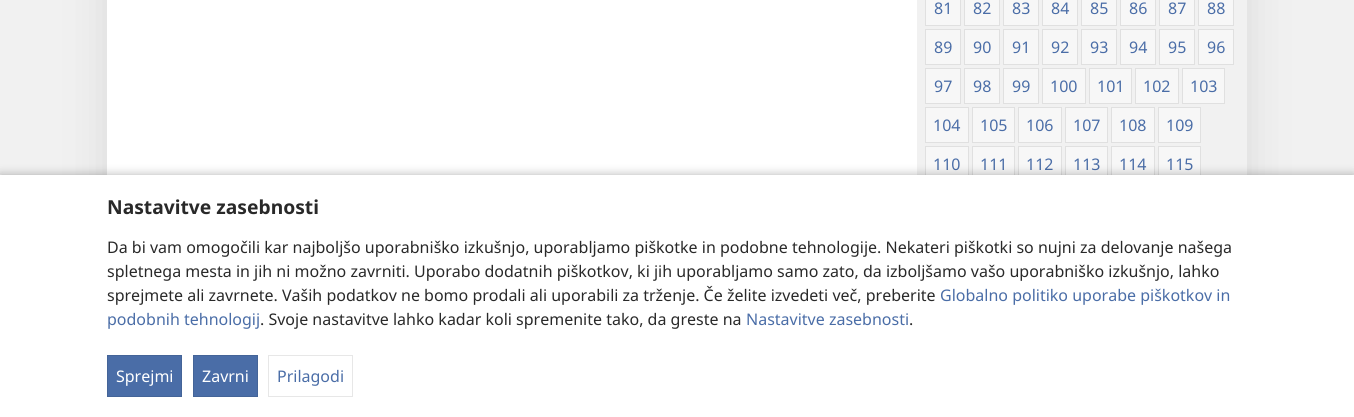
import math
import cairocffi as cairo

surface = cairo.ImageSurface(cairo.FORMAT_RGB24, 1354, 417)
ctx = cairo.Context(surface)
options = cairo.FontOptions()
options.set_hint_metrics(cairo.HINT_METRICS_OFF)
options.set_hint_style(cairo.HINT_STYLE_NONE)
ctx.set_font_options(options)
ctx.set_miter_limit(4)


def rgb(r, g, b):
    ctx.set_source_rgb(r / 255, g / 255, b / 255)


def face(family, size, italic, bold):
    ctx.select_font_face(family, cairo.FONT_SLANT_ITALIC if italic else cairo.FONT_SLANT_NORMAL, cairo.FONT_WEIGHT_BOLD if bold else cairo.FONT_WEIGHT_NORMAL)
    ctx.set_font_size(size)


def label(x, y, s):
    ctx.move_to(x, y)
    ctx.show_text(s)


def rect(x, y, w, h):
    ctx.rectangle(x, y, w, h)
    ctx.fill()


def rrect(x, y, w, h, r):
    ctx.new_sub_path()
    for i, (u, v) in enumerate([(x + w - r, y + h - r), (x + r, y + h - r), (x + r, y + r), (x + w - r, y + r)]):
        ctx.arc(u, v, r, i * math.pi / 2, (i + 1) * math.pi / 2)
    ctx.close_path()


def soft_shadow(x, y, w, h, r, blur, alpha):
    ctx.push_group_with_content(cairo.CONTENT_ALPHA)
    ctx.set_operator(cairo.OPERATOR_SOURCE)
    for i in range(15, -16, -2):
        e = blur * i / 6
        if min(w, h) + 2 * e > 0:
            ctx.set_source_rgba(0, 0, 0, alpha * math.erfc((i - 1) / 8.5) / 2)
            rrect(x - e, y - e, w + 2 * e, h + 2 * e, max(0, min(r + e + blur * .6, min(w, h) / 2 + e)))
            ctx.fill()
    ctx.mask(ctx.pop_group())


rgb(241, 241, 241)
ctx.paint()
rgb(204, 204, 204)
soft_shadow(99, -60, 1156, 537, 0, 20, 0.5)
rgb(255, 255, 255)
rect(107, 0, 810, 175)
rgb(241, 241, 241)
rect(917, 0, 330, 175)
rgb(247, 247, 247)
ctx.rectangle(925.5, -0.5, 35, 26)
ctx.fill_preserve()
rgb(224, 224, 224)
ctx.set_line_width(1)
ctx.stroke()
face('Noto Sans', 16, 0, 0)
rgb(74, 109, 167)
label(934, 14, '81')
rgb(247, 247, 247)
ctx.rectangle(964.5, -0.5, 35, 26)
ctx.fill_preserve()
rgb(224, 224, 224)
ctx.stroke()
rgb(74, 109, 167)
label(973, 14, '82')
rgb(247, 247, 247)
ctx.rectangle(1003.5, -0.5, 35, 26)
ctx.fill_preserve()
rgb(224, 224, 224)
ctx.stroke()
rgb(74, 109, 167)
label(1012, 14, '83')
rgb(247, 247, 247)
ctx.rectangle(1042.5, -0.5, 35, 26)
ctx.fill_preserve()
rgb(224, 224, 224)
ctx.stroke()
rgb(74, 109, 167)
label(1051, 14, '84')
rgb(247, 247, 247)
ctx.rectangle(1081.5, -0.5, 35, 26)
ctx.fill_preserve()
rgb(224, 224, 224)
ctx.stroke()
rgb(74, 109, 167)
label(1090, 14, '85')
rgb(247, 247, 247)
ctx.rectangle(1120.5, -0.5, 35, 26)
ctx.fill_preserve()
rgb(224, 224, 224)
ctx.stroke()
rgb(74, 109, 167)
label(1129, 14, '86')
rgb(247, 247, 247)
ctx.rectangle(1159.5, -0.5, 35, 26)
ctx.fill_preserve()
rgb(224, 224, 224)
ctx.stroke()
rgb(74, 109, 167)
label(1168, 14, '87')
rgb(247, 247, 247)
ctx.rectangle(1198.5, -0.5, 35, 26)
ctx.fill_preserve()
rgb(224, 224, 224)
ctx.stroke()
rgb(74, 109, 167)
label(1207, 14, '88')
rgb(247, 247, 247)
ctx.rectangle(925.5, 29.5, 35, 35)
ctx.fill_preserve()
rgb(224, 224, 224)
ctx.stroke()
rgb(74, 109, 167)
label(934, 53, '89')
rgb(247, 247, 247)
ctx.rectangle(964.5, 29.5, 35, 35)
ctx.fill_preserve()
rgb(224, 224, 224)
ctx.stroke()
rgb(74, 109, 167)
label(973, 53, '90')
rgb(247, 247, 247)
ctx.rectangle(1003.5, 29.5, 35, 35)
ctx.fill_preserve()
rgb(224, 224, 224)
ctx.stroke()
rgb(74, 109, 167)
label(1012, 53, '91')
rgb(247, 247, 247)
ctx.rectangle(1042.5, 29.5, 35, 35)
ctx.fill_preserve()
rgb(224, 224, 224)
ctx.stroke()
rgb(74, 109, 167)
label(1051, 53, '92')
rgb(247, 247, 247)
ctx.rectangle(1081.5, 29.5, 35, 35)
ctx.fill_preserve()
rgb(224, 224, 224)
ctx.stroke()
rgb(74, 109, 167)
label(1090, 53, '93')
rgb(247, 247, 247)
ctx.rectangle(1120.5, 29.5, 35, 35)
ctx.fill_preserve()
rgb(224, 224, 224)
ctx.stroke()
rgb(74, 109, 167)
label(1129, 53, '94')
rgb(247, 247, 247)
ctx.rectangle(1159.5, 29.5, 35, 35)
ctx.fill_preserve()
rgb(224, 224, 224)
ctx.stroke()
rgb(74, 109, 167)
label(1168, 53, '95')
rgb(247, 247, 247)
ctx.rectangle(1198.5, 29.5, 35, 35)
ctx.fill_preserve()
rgb(224, 224, 224)
ctx.stroke()
rgb(74, 109, 167)
label(1207, 53, '96')
rgb(247, 247, 247)
ctx.rectangle(925.5, 68.5, 35, 35)
ctx.fill_preserve()
rgb(224, 224, 224)
ctx.stroke()
rgb(74, 109, 167)
label(934, 92, '97')
rgb(247, 247, 247)
ctx.rectangle(964.5, 68.5, 35, 35)
ctx.fill_preserve()
rgb(224, 224, 224)
ctx.stroke()
rgb(74, 109, 167)
label(973, 92, '98')
rgb(247, 247, 247)
ctx.rectangle(1003.5, 68.5, 35, 35)
ctx.fill_preserve()
rgb(224, 224, 224)
ctx.stroke()
rgb(74, 109, 167)
label(1012, 92, '99')
rgb(247, 247, 247)
ctx.rectangle(1042.5, 68.5, 43, 35)
ctx.fill_preserve()
rgb(224, 224, 224)
ctx.stroke()
rgb(74, 109, 167)
label(1050, 92, '100')
rgb(247, 247, 247)
ctx.rectangle(1089.5, 68.5, 42, 35)
ctx.fill_preserve()
rgb(224, 224, 224)
ctx.stroke()
rgb(74, 109, 167)
label(1097, 92, '101')
rgb(247, 247, 247)
ctx.rectangle(1135.5, 68.5, 43, 35)
ctx.fill_preserve()
rgb(224, 224, 224)
ctx.stroke()
rgb(74, 109, 167)
label(1143, 92, '102')
rgb(247, 247, 247)
ctx.rectangle(1182.5, 68.5, 42, 35)
ctx.fill_preserve()
rgb(224, 224, 224)
ctx.stroke()
rgb(74, 109, 167)
label(1190, 92, '103')
rgb(247, 247, 247)
ctx.rectangle(925.5, 107.5, 43, 35)
ctx.fill_preserve()
rgb(224, 224, 224)
ctx.stroke()
rgb(74, 109, 167)
label(933, 131, '104')
rgb(247, 247, 247)
ctx.rectangle(972.5, 107.5, 42, 35)
ctx.fill_preserve()
rgb(224, 224, 224)
ctx.stroke()
rgb(74, 109, 167)
label(980, 131, '105')
rgb(247, 247, 247)
ctx.rectangle(1018.5, 107.5, 43, 35)
ctx.fill_preserve()
rgb(224, 224, 224)
ctx.stroke()
rgb(74, 109, 167)
label(1026, 131, '106')
rgb(247, 247, 247)
ctx.rectangle(1065.5, 107.5, 42, 35)
ctx.fill_preserve()
rgb(224, 224, 224)
ctx.stroke()
rgb(74, 109, 167)
label(1073, 131, '107')
rgb(247, 247, 247)
ctx.rectangle(1111.5, 107.5, 43, 35)
ctx.fill_preserve()
rgb(224, 224, 224)
ctx.stroke()
rgb(74, 109, 167)
label(1119, 131, '108')
rgb(247, 247, 247)
ctx.rectangle(1158.5, 107.5, 42, 35)
ctx.fill_preserve()
rgb(224, 224, 224)
ctx.stroke()
rgb(74, 109, 167)
label(1166, 131, '109')
rgb(247, 247, 247)
rect(926, 147, 42, 28)
ctx.rectangle(925.5, 146.5, 43, 35)
rgb(224, 224, 224)
ctx.stroke()
rgb(74, 109, 167)
label(933, 170, '110')
rgb(247, 247, 247)
rect(973, 147, 41, 28)
ctx.rectangle(972.5, 146.5, 42, 35)
rgb(224, 224, 224)
ctx.stroke()
rgb(74, 109, 167)
label(980, 170, '111')
rgb(247, 247, 247)
rect(1019, 147, 42, 28)
ctx.rectangle(1018.5, 146.5, 43, 35)
rgb(224, 224, 224)
ctx.stroke()
rgb(74, 109, 167)
label(1026, 170, '112')
rgb(247, 247, 247)
rect(1066, 147, 41, 28)
ctx.rectangle(1065.5, 146.5, 42, 35)
rgb(224, 224, 224)
ctx.stroke()
rgb(74, 109, 167)
label(1073, 170, '113')
rgb(247, 247, 247)
rect(1112, 147, 42, 28)
ctx.rectangle(1111.5, 146.5, 43, 35)
rgb(224, 224, 224)
ctx.stroke()
rgb(74, 109, 167)
label(1119, 170, '114')
rgb(247, 247, 247)
rect(1159, 147, 41, 28)
ctx.rectangle(1158.5, 146.5, 42, 35)
rgb(224, 224, 224)
ctx.stroke()
rgb(74, 109, 167)
label(1166, 170, '115')
rgb(0, 0, 0)
soft_shadow(0, 175, 1354, 242, 0, 5, 0.3)
rgb(255, 255, 255)
rect(0, 175, 1354, 242)
face('Noto Sans', 19.25, 0, 1)
rgb(41, 41, 41)
label(107, 214, 'Nastavitve zasebnosti')
face('Noto Sans', 16, 0, 0)
label(107, 253, 'Da bi vam omogočili kar najboljšo uporabniško izkušnjo, uporabljamo piškotke in podobne tehnologije. Nekateri piškotki so nujni za delovanje našega')
label(107, 277, 'spletnega mesta in jih ni možno zavrniti. Uporabo dodatnih piškotkov, ki jih uporabljamo samo zato, da izboljšamo vašo uporabniško izkušnjo, lahko')
label(107, 301, 'sprejmete ali zavrnete. Vaših podatkov ne bomo prodali ali uporabili za trženje. Če želite izvedeti več, preberite')
rgb(74, 109, 167)
label(940, 301, 'Globalno politiko uporabe piškotkov in')
label(107, 325, 'podobnih tehnologij')
rgb(41, 41, 41)
label(260, 325, '. Svoje nastavitve lahko kadar koli spremenite tako, da greste na')
rgb(74, 109, 167)
label(746, 325, 'Nastavitve zasebnosti')
rgb(41, 41, 41)
label(909, 325, '.')
rgb(74, 109, 167)
ctx.rectangle(107.5, 355.5, 74, 41)
ctx.fill_preserve()
rgb(68, 100, 152)
ctx.stroke()
rgb(255, 255, 255)
label(116, 382, 'Sprejmi')
rgb(74, 109, 167)
ctx.rectangle(193.5, 355.5, 64, 41)
ctx.fill_preserve()
rgb(68, 100, 152)
ctx.stroke()
rgb(255, 255, 255)
label(202, 382, 'Zavrni')
ctx.rectangle(268.5, 355.5, 84, 41)
rgb(231, 231, 231)
ctx.stroke()
rgb(74, 109, 167)
label(277, 382, 'Prilagodi')
surface.write_to_png('render.png')
